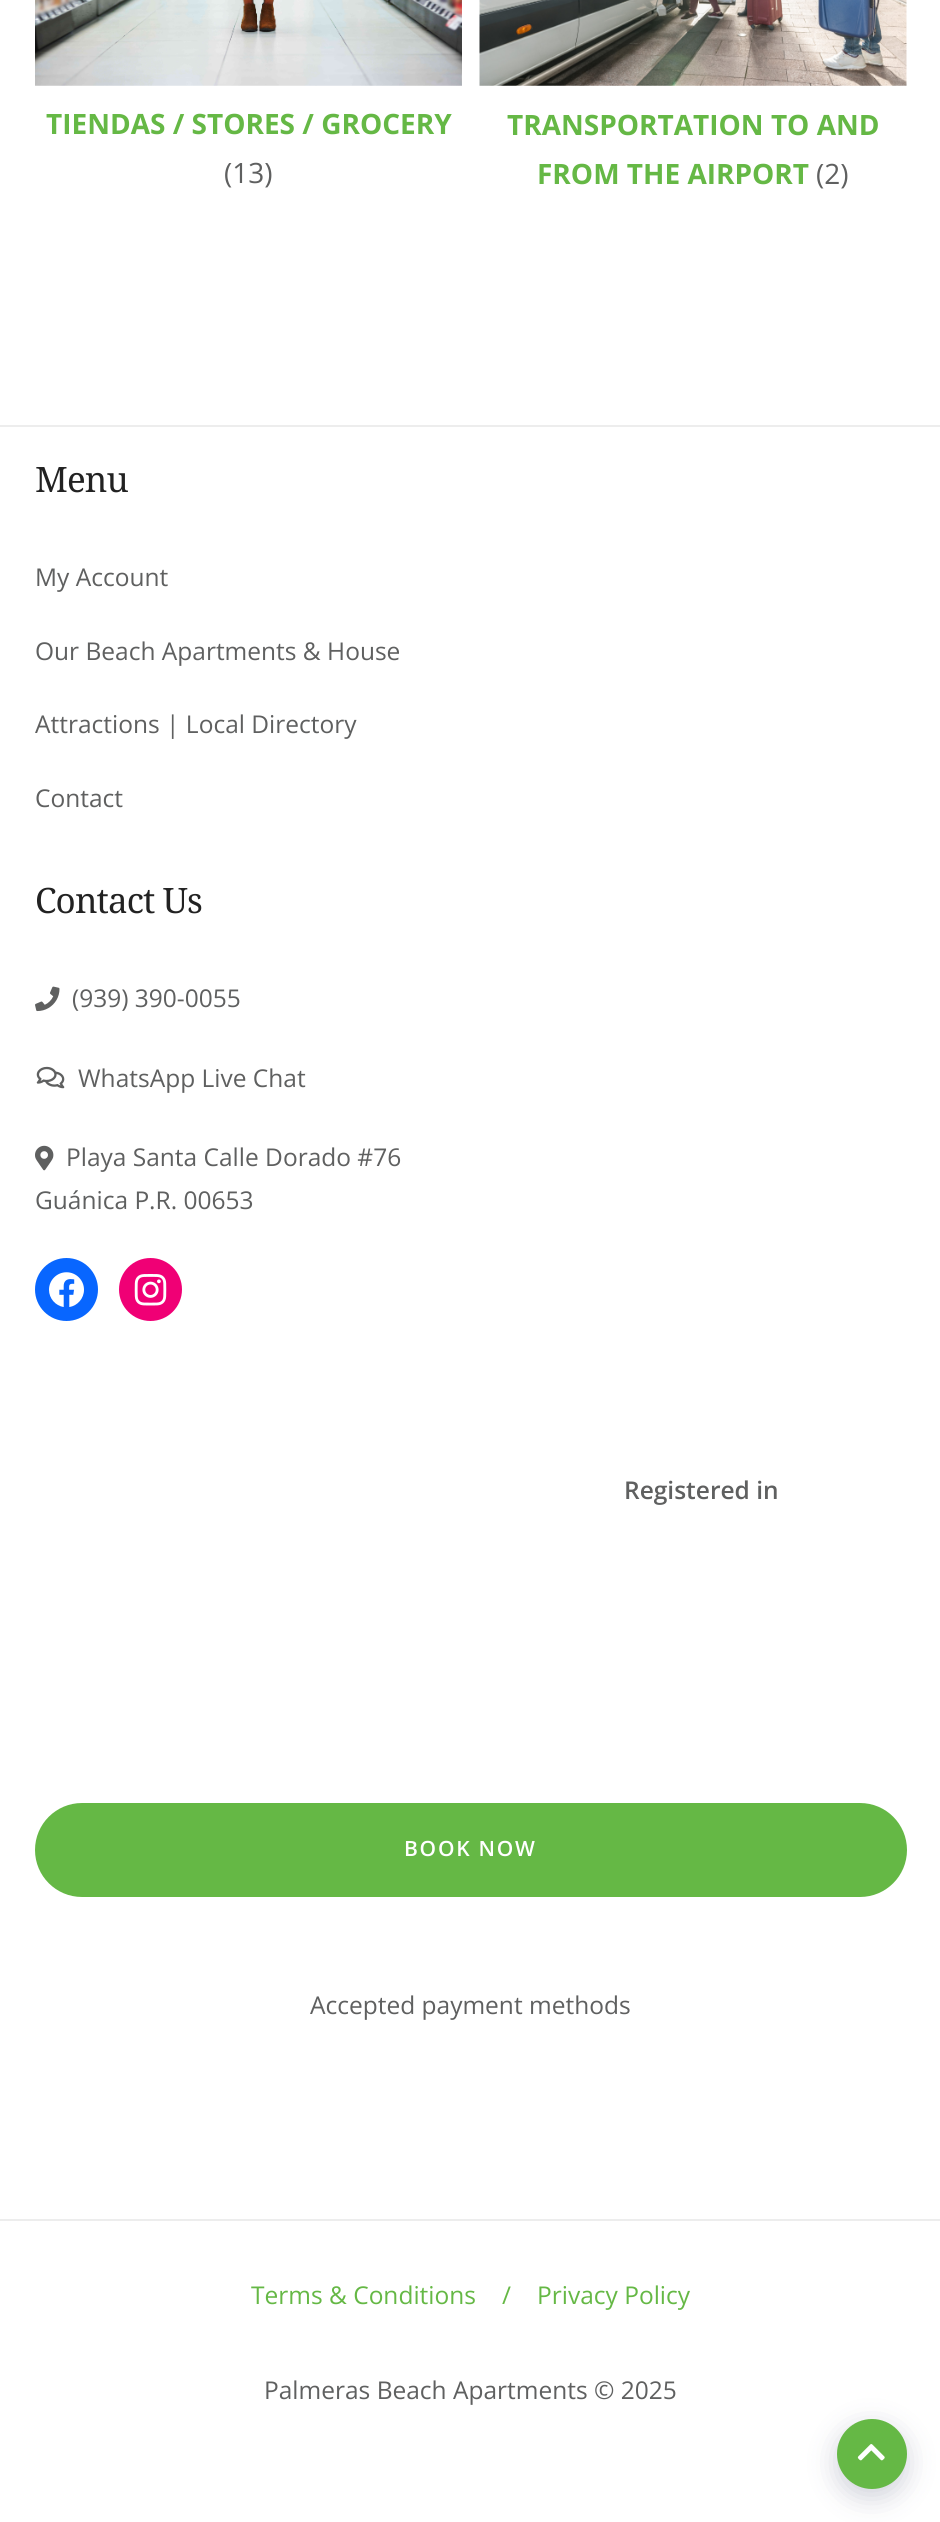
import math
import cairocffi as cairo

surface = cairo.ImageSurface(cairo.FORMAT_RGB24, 940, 2522)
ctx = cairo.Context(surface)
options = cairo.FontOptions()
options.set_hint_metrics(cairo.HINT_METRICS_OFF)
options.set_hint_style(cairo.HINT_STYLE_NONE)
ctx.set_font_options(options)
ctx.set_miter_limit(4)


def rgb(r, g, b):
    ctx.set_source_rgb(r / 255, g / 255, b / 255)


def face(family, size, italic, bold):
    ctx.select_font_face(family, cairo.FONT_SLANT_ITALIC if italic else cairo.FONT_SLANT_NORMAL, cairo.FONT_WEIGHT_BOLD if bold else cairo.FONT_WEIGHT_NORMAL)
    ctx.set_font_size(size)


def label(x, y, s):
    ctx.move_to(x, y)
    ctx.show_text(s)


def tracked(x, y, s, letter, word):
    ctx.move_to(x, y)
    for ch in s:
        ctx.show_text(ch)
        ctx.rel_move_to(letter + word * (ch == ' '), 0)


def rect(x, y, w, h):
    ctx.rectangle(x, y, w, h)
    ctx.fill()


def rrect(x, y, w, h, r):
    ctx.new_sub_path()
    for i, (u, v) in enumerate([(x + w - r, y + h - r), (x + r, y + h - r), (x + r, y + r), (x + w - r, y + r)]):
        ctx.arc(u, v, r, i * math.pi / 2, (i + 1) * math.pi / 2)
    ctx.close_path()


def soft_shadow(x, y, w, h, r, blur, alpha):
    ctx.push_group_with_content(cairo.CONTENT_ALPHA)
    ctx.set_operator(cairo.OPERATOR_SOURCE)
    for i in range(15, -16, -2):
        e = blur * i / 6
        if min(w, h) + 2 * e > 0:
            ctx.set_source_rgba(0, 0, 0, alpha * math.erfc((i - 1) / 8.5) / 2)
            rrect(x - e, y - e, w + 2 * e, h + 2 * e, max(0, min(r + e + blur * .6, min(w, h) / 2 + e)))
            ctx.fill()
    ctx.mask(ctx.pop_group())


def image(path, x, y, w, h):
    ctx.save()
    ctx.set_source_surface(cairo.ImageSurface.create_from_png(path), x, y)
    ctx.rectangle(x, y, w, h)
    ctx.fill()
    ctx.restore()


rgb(255, 255, 255)
ctx.paint()
image('image0.png', 35, 0, 427, 86)
face('Open Sans', 28, 0, 1)
rgb(101, 184, 69)
label(46, 134, 'TIENDAS / STORES / GROCERY')
face('Open Sans', 28, 0, 0)
rgb(95, 96, 96)
label(224, 183, '(13)')
image('image1.png', 479, 0, 428, 86)
face('Open Sans', 28, 0, 1)
rgb(101, 184, 69)
label(507, 135, 'TRANSPORTATION TO AND')
label(537, 184, 'FROM THE AIRPORT')
face('Open Sans', 28, 0, 0)
rgb(95, 96, 96)
label(816, 184, '(2)')
rgb(237, 237, 237)
rect(0, 425, 940, 2)
face('Noto Serif', 35, 0, 0)
rgb(34, 34, 34)
tracked(35, 492, 'Menu', -0.9, 0)
face('Open Sans', 24.5, 0, 0)
rgb(95, 96, 96)
label(35, 586, 'My Account')
label(35, 660, 'Our Beach Apartments & House')
label(35, 733, 'Attractions | Local Directory')
label(35, 807, 'Contact')
face('Noto Serif', 35, 0, 0)
rgb(34, 34, 34)
tracked(35, 913, 'Contact Us', -0.9, 0)
image('image2.png', 35, 986, 25, 26)
face('Open Sans', 24.5, 0, 0)
rgb(95, 96, 96)
label(72, 1007, '(939) 390-0055')
image('image3.png', 36, 1066, 29, 23)
label(78, 1087, 'WhatsApp Live Chat')
image('image4.png', 35, 1145, 19, 26)
label(66, 1166, 'Playa Santa Calle Dorado #76')
label(35, 1209, 'Guánica P.R. 00653')
rgb(8, 102, 255)
ctx.new_path()
ctx.arc(66.5, 1289.5, 31.5, 0, 2 * math.pi)
ctx.fill()
image('image5.png', 49, 1272, 35, 35)
rgb(240, 0, 117)
ctx.arc(150.5, 1289.5, 31.5, 0, 2 * math.pi)
ctx.fill()
image('image6.png', 134, 1274, 33, 32)
face('Open Sans SemiBold', 24.5, 0, 0)
rgb(95, 96, 96)
label(624, 1499, 'Registered in')
rgb(101, 184, 69)
rrect(35, 1803, 872, 94, 47)
ctx.fill()
face('Open Sans SemiBold', 21, 0, 0)
rgb(255, 255, 255)
tracked(404, 1856, 'BOOK NOW', 1.75, 0)
face('Open Sans', 24.5, 0, 0)
rgb(95, 96, 96)
label(310, 2014, 'Accepted payment methods')
rgb(237, 237, 237)
rect(0, 2219, 940, 2)
rgb(101, 184, 69)
label(251, 2304, 'Terms & Conditions')
label(502, 2304, '/')
label(537, 2304, 'Privacy Policy')
rgb(95, 96, 96)
label(264, 2399, 'Palmeras Beach Apartments © 2025')
rgb(37, 46, 89)
soft_shadow(835, 2426, 73, 73, 36.5, 13, 0.2)
rgb(101, 184, 69)
ctx.arc(872, 2454, 34, 0, 2 * math.pi)
ctx.fill_preserve()
ctx.stroke()
image('image7.png', 857, 2444, 28, 17)
surface.write_to_png('render.png')
